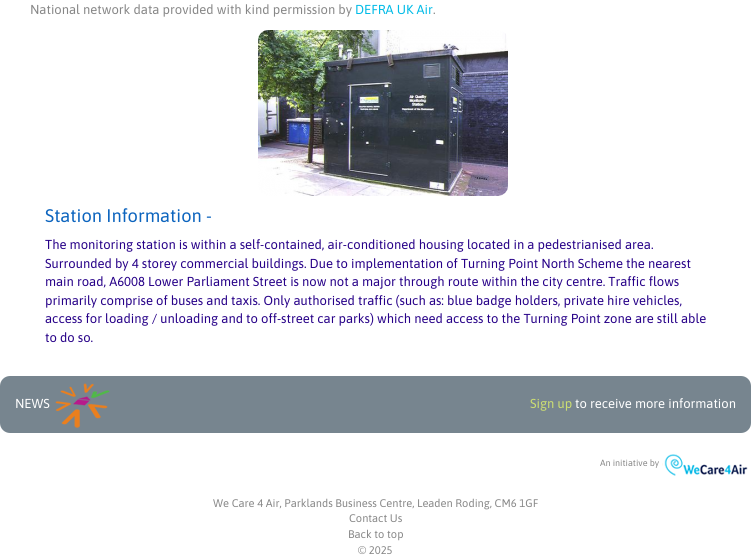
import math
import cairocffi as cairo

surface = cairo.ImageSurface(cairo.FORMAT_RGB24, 751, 560)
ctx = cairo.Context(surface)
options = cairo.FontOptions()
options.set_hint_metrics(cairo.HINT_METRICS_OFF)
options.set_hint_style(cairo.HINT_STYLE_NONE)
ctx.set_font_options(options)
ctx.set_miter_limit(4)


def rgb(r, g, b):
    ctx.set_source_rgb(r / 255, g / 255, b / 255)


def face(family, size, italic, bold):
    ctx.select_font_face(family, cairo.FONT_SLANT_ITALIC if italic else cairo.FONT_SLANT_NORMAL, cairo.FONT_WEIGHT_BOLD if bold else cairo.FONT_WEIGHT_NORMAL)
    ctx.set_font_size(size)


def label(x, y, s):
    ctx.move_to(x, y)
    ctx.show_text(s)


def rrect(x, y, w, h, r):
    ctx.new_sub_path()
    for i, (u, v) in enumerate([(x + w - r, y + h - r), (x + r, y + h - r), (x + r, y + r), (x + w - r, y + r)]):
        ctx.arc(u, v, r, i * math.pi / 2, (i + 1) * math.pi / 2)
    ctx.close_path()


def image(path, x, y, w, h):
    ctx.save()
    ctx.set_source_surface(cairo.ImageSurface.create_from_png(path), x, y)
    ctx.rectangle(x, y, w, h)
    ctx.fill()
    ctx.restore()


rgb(255, 255, 255)
ctx.paint()
face('Asap', 13, 0, 0)
rgb(135, 135, 135)
label(30, 14, 'National network data provided with kind permission by')
rgb(1, 187, 231)
label(355, 14, 'DEFRA UK Air')
rgb(135, 135, 135)
label(433, 14, '.')
image('image0.png', 258, 30, 250, 166)
face('Asap', 18.25, 0, 0)
rgb(12, 100, 190)
label(45, 222, 'Station Information -')
face('Asap', 13, 0, 0)
rgb(39, 1, 136)
label(45, 249, 'The monitoring station is within a self-contained, air-conditioned housing located in a pedestrianised area.')
label(45, 268, 'Surrounded by 4 storey commercial buildings. Due to implementation of Turning Point North Scheme the nearest')
label(45, 286, 'main road, A6008 Lower Parliament Street is now not a major through route within the city centre. Traffic flows')
label(45, 305, 'primarily comprise of buses and taxis. Only authorised traffic (such as: blue badge holders, private hire vehicles,')
label(45, 323, 'access for loading / unloading and to off-street car parks) which need access to the Turning Point zone are still able')
label(45, 342, 'to do so.')
rgb(119, 133, 143)
rrect(0, 376, 751, 57, 10)
ctx.fill()
rgb(255, 255, 255)
label(15, 408, 'NEWS')
image('image1.png', 55, 383, 55, 45)
rgb(205, 223, 114)
label(530, 408, 'Sign up')
rgb(255, 255, 255)
label(575, 408, 'to receive more information')
face('Asap', 9, 0, 0)
rgb(135, 135, 135)
label(600, 466, 'An initiative by')
image('image2.png', 662, 454, 86, 22)
face('Asap', 11.05, 0, 0)
label(213, 507, 'We Care 4 Air, Parklands Business Centre, Leaden Roding, CM6 1GF')
label(349, 522, 'Contact Us')
label(348, 538, 'Back to top')
label(358, 554, '© 2025')
surface.write_to_png('render.png')
